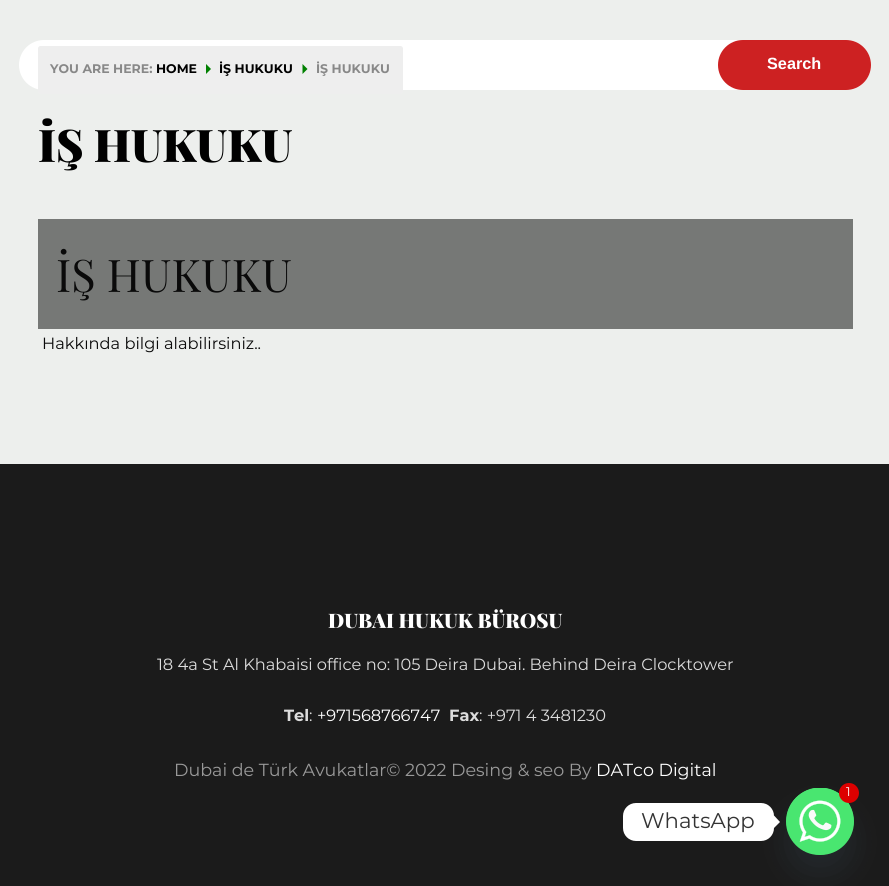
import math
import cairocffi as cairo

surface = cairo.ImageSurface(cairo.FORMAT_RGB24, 889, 886)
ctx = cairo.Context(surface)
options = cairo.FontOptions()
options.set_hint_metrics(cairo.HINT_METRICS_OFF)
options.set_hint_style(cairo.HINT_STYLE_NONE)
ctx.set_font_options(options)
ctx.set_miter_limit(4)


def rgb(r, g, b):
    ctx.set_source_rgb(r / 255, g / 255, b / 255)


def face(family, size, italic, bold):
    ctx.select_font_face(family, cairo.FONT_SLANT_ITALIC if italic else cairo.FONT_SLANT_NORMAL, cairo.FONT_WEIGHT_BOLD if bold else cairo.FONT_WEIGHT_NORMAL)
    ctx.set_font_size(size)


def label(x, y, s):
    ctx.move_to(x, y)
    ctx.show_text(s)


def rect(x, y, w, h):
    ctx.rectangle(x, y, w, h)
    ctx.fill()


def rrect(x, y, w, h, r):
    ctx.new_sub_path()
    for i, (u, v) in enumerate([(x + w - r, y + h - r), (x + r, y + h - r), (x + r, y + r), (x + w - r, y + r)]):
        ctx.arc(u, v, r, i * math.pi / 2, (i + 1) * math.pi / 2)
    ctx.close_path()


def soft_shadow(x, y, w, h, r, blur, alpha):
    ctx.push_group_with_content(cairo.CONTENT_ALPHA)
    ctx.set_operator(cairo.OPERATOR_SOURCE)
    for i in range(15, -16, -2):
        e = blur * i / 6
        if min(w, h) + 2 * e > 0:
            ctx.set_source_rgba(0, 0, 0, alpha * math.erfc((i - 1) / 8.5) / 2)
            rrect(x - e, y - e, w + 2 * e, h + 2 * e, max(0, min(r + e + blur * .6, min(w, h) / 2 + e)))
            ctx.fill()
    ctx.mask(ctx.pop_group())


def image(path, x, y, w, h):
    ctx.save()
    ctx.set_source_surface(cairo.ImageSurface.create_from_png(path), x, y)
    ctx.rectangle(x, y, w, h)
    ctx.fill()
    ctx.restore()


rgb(237, 239, 237)
ctx.paint()
rgb(255, 255, 255)
rrect(19, 40, 852, 50, 25)
ctx.fill()
rgb(238, 238, 238)
rrect(38, 46, 365, 48, 2.5)
ctx.fill()
face('Montserrat Thin', 12.5, 0, 0)
rgb(136, 136, 136)
label(50, 73, 'YOU ARE HERE:')
rgb(0, 0, 0)
label(156, 73, 'HOME')
rgb(0, 128, 0)
ctx.new_path()
ctx.move_to(206, 74)
ctx.line_to(206, 64)
ctx.line_to(211, 69)
ctx.close_path()
ctx.fill()
rgb(0, 0, 0)
label(219, 73, 'İŞ HUKUKU')
rgb(0, 128, 0)
ctx.new_path()
ctx.move_to(302.5, 74)
ctx.line_to(302.5, 64)
ctx.line_to(307.5, 69)
ctx.close_path()
ctx.fill()
rgb(136, 136, 136)
label(316, 73, 'İŞ HUKUKU')
face('Playfair Display Black', 45, 0, 0)
rgb(0, 0, 0)
label(38, 162, 'İŞ HUKUKU')
rgb(118, 120, 118)
rect(38, 219, 815, 110)
face('Playfair Display', 45, 0, 0)
rgb(10, 10, 10)
label(56, 292, 'İŞ HUKUKU')
face('Montserrat', 16.25, 0, 0)
label(42, 349, 'Hakkında bilgi alabilirsiniz..')
rgb(205, 33, 34)
rrect(718, 40, 153, 50, 25)
ctx.fill()
face('Liberation Sans', 16.25, 0, 1)
rgb(255, 255, 255)
label(767, 69, 'Search')
rgb(27, 27, 27)
rect(0, 464, 889, 422)
face('Playfair Display Black', 20, 0, 0)
rgb(255, 255, 255)
label(328, 628, 'DUBAI HUKUK BÜROSU')
face('Montserrat', 16.25, 0, 0)
rgb(220, 220, 220)
label(157, 670, '18 4a St Al Khabaisi office no: 105 Deira Dubai. Behind Deira Clocktower')
face('Montserrat Thin', 16.25, 0, 0)
label(284, 721, 'Tel')
face('Montserrat', 16.25, 0, 0)
label(309, 721, ':')
rgb(255, 255, 255)
label(317, 721, '+971568766747')
face('Montserrat Thin', 16.25, 0, 0)
rgb(220, 220, 220)
label(449, 721, 'Fax')
face('Montserrat', 16.25, 0, 0)
label(479, 721, ': +971 4 3481230')
face('Montserrat', 17.5, 0, 0)
rgb(153, 153, 153)
label(174, 776, 'Dubai de Türk Avukatlar© 2022 Desing & seo By')
rgb(255, 255, 255)
label(596, 776, 'DATco Digital')
rgb(73, 104, 126)
soft_shadow(786, 808, 68, 67, 33.5, 15, 0.16)
rgb(73, 230, 112)
rrect(786, 788, 68, 67, 33.5)
ctx.fill()
image('image0.png', 786, 788, 68, 67)
rgb(221, 0, 0)
ctx.arc(849, 793, 10, 0, 2 * math.pi)
ctx.fill()
face('Montserrat', 12.5, 0, 0)
rgb(255, 255, 255)
label(846, 796, '1')
rrect(623, 803, 151, 38, 13)
ctx.fill()
face('Montserrat', 21.25, 0, 0)
rgb(51, 51, 51)
label(641, 828, 'WhatsApp')
rgb(255, 255, 255)
ctx.new_path()
ctx.move_to(774, 828)
ctx.line_to(774, 815.5)
ctx.line_to(780, 822)
ctx.close_path()
ctx.fill()
surface.write_to_png('render.png')
